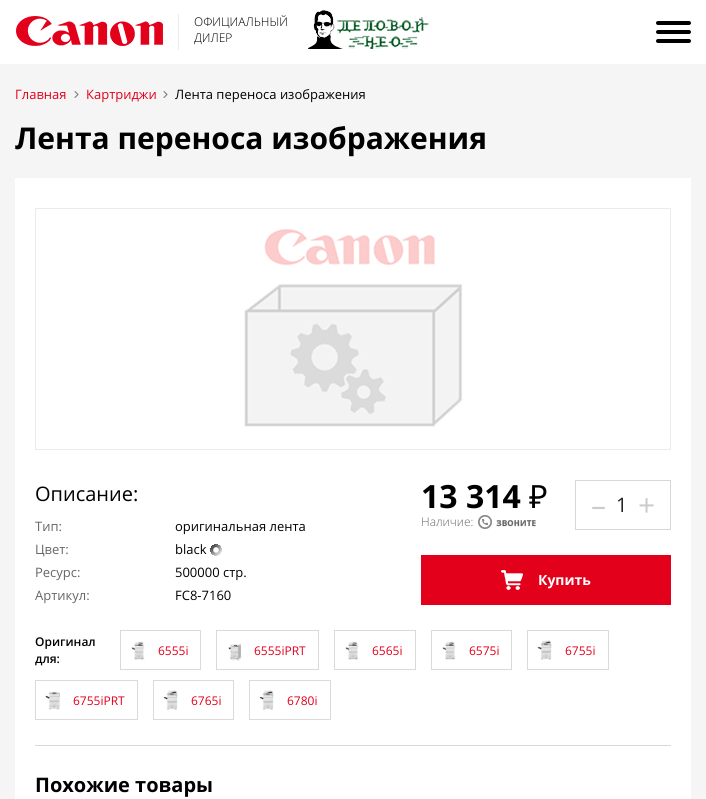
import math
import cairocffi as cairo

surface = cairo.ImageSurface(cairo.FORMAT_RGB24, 706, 799)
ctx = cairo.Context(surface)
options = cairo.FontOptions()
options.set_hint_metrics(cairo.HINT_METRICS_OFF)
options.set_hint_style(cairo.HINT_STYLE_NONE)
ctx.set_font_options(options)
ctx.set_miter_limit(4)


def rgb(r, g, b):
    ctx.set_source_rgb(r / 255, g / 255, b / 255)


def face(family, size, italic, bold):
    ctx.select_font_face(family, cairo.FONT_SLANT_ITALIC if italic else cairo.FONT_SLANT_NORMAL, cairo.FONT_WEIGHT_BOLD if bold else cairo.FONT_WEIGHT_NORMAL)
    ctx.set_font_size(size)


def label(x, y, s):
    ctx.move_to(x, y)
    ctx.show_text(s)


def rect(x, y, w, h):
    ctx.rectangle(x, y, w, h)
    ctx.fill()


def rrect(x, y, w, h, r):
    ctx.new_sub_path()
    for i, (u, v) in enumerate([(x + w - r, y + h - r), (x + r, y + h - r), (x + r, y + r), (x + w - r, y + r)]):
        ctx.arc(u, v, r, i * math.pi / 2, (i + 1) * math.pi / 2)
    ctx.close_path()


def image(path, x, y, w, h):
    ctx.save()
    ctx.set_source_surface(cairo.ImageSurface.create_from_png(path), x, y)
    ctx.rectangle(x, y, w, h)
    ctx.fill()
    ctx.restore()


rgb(245, 245, 245)
ctx.paint()
rgb(255, 255, 255)
rect(0, 0, 706, 64)
image('image0.png', 16, 16, 147, 30)
rgb(235, 235, 235)
rect(178, 14, 1, 36)
face('Open Sans Light', 12, 0, 0)
rgb(0, 0, 0)
label(194, 26, 'ОФИЦИАЛЬНЫЙ')
label(194, 42, 'ДИЛЕР')
image('image1.png', 308, 10, 121, 39)
rrect(656, 21, 35, 4, 2)
ctx.fill()
rrect(656, 30, 35, 4, 2)
ctx.fill()
rrect(656, 39, 35, 4, 2)
ctx.fill()
face('Open Sans', 13, 0, 0)
rgb(226, 0, 26)
label(15, 99, 'Главная')
image('image2.png', 74, 91, 5, 7)
label(86, 99, 'Картриджи')
image('image2.png', 163, 91, 5, 7)
rgb(0, 0, 0)
label(175, 99, 'Лента переноса изображения')
face('Open Sans', 30, 0, 1)
label(15, 149, 'Лента переноса изображения')
rgb(255, 255, 255)
rect(15, 178, 676, 621)
ctx.rectangle(35.5, 208.5, 635, 241)
rgb(235, 235, 235)
ctx.set_line_width(1)
ctx.stroke()
image('image3.png', 244, 229, 219, 198)
face('Open Sans', 20, 0, 0)
rgb(0, 0, 0)
label(35, 501, 'Описание:')
face('Open Sans', 13, 0, 0)
rgb(102, 102, 102)
label(35, 531, 'Тип:')
rgb(0, 0, 0)
label(175, 531, 'оригинальная лента')
rgb(102, 102, 102)
label(35, 554, 'Цвет:')
rgb(0, 0, 0)
label(175, 554, 'black')
image('image4.png', 210, 544, 12, 12)
rgb(102, 102, 102)
label(35, 577, 'Ресурс:')
rgb(0, 0, 0)
label(175, 577, '500000 стр.')
rgb(102, 102, 102)
label(35, 600, 'Артикул:')
rgb(0, 0, 0)
label(175, 600, 'FC8-7160')
face('Open Sans', 32, 0, 1)
label(421, 508, '13')
label(466, 508, '314')
face('Noto Sans', 32, 0, 0)
label(529, 508, '₽')
face('Open Sans Light', 12, 0, 0)
rgb(102, 102, 102)
label(421, 526, 'Наличие:')
image('image5.png', 478, 515, 58, 14)
ctx.rectangle(575.5, 480.5, 95, 49)
rgb(215, 215, 215)
ctx.stroke()
face('Open Sans', 30, 0, 0)
rgb(204, 204, 204)
label(591, 516, '–')
face('Open Sans', 20, 0, 0)
rgb(34, 34, 34)
label(616, 512, '1')
face('Open Sans', 30, 0, 0)
rgb(204, 204, 204)
label(638, 516, '+')
rgb(226, 0, 26)
rect(421, 555, 250, 50)
image('image6.png', 501, 570, 22, 20)
face('Open Sans', 14, 0, 1)
rgb(255, 255, 255)
label(538, 585, 'Купить')
rgb(218, 218, 218)
rect(35, 745, 636, 1)
face('Open Sans SemiBold', 12, 0, 0)
rgb(0, 0, 0)
label(35, 646, 'Оригинал')
label(35, 663, 'для:')
ctx.rectangle(120.5, 630.5, 80, 39)
rgb(218, 218, 218)
ctx.stroke()
image('image7.png', 131, 641, 14, 19)
face('Open Sans', 12, 0, 0)
rgb(226, 0, 26)
label(158, 655, '6555i')
ctx.rectangle(216.5, 630.5, 102, 39)
rgb(218, 218, 218)
ctx.stroke()
image('image8.png', 228, 644, 14, 17)
rgb(226, 0, 26)
label(254, 655, '6555iPRT')
ctx.rectangle(334.5, 630.5, 81, 39)
rgb(218, 218, 218)
ctx.stroke()
image('image7.png', 345, 641, 14, 19)
rgb(226, 0, 26)
label(372, 655, '6565i')
ctx.rectangle(431.5, 630.5, 80, 39)
rgb(218, 218, 218)
ctx.stroke()
image('image7.png', 442, 641, 14, 19)
rgb(226, 0, 26)
label(469, 655, '6575i')
ctx.rectangle(527.5, 630.5, 81, 39)
rgb(218, 218, 218)
ctx.stroke()
image('image9.png', 537, 640, 15, 20)
rgb(226, 0, 26)
label(565, 655, '6755i')
ctx.rectangle(35.5, 680.5, 102, 39)
rgb(218, 218, 218)
ctx.stroke()
image('image10.png', 45, 691, 15, 19)
rgb(226, 0, 26)
label(73, 705, '6755iPRT')
ctx.rectangle(153.5, 680.5, 80, 39)
rgb(218, 218, 218)
ctx.stroke()
image('image11.png', 163, 690, 15, 20)
rgb(226, 0, 26)
label(191, 705, '6765i')
ctx.rectangle(249.5, 680.5, 81, 39)
rgb(218, 218, 218)
ctx.stroke()
image('image11.png', 259, 690, 15, 20)
rgb(226, 0, 26)
label(287, 705, '6780i')
face('Open Sans', 20, 0, 1)
rgb(0, 0, 0)
label(35, 792, 'Похожие товары')
surface.write_to_png('render.png')
